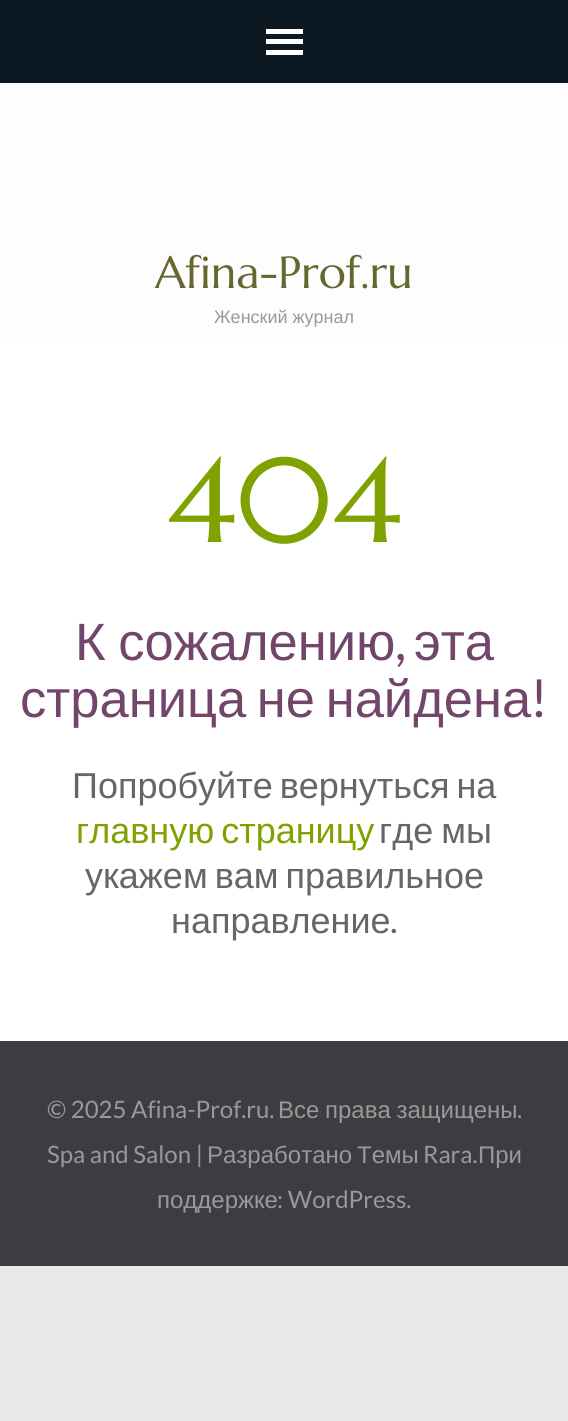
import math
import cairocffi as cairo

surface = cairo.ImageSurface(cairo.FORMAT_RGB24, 568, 1421)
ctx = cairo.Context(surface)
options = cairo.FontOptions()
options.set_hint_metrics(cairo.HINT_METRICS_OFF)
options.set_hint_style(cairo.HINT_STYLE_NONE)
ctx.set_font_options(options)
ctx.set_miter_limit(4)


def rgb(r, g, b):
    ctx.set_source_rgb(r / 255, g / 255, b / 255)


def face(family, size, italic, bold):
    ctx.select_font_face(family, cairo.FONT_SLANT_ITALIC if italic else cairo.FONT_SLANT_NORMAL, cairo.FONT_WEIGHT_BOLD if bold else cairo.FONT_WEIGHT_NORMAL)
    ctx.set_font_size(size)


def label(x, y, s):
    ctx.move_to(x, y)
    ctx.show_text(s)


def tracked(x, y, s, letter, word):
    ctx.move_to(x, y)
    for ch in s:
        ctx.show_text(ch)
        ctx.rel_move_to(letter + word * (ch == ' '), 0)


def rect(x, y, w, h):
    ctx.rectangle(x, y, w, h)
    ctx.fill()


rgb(233, 233, 233)
ctx.paint()
rgb(12, 25, 35)
rect(0, 0, 568, 83)
rgb(255, 255, 255)
rect(266, 29, 37, 5)
rect(266, 39, 37, 5)
rect(266, 50, 37, 5)
rect(0, 344, 568, 697)
rgb(253, 253, 253)
rect(0, 83, 568, 261)
face('Marcellus', 45, 0, 0)
rgb(102, 102, 47)
label(155, 288, 'Afina-Prof.ru')
face('Liberation Sans', 18, 0, 0)
rgb(153, 153, 153)
label(214, 323, 'Женский журнал')
face('Marcellus', 120, 0, 0)
rgb(128, 162, 0)
label(167, 542, '404')
face('Liberation Sans', 52.5, 0, 0)
rgb(114, 70, 106)
tracked(75, 660, 'К сожалению', 0, -2)
face('Lato', 52.5, 0, 0)
label(395, 660, ',')
face('Liberation Sans', 52.5, 0, 0)
label(414, 660, 'эта')
tracked(20, 717, 'страница не найдена', 0, -4)
face('Lato', 52.5, 0, 0)
label(530, 717, '!')
face('Liberation Sans', 36, 0, 0)
rgb(102, 102, 102)
tracked(72, 798, 'Попробуйте вернуться на', 0, -3)
rgb(128, 162, 0)
tracked(76, 843, 'главную страницу', 0, -3)
rgb(102, 102, 102)
tracked(379, 843, 'где мы', 0, -2)
tracked(85, 888, 'укажем вам правильное', 0, -3)
label(171, 933, 'направление')
face('Lato', 36, 0, 0)
label(390, 933, '.')
rgb(63, 60, 65)
rect(0, 1041, 568, 225)
face('Lato', 24, 0, 0)
rgb(153, 153, 153)
label(47, 1118, '© 2025 Afina-Prof.ru.')
face('Liberation Sans', 24, 0, 0)
tracked(278, 1118, 'Все права защищены', 0, -1)
face('Lato', 24, 0, 0)
label(517, 1118, '.')
label(47, 1163, 'Spa and Salon |')
face('Liberation Sans', 24, 0, 0)
label(207, 1163, 'Разработано')
label(357, 1163, 'Темы')
face('Lato', 24, 0, 0)
label(423, 1163, 'Rara.')
face('Liberation Sans', 24, 0, 0)
label(478, 1163, 'При')
label(157, 1208, 'поддержке')
face('Lato', 24, 0, 0)
label(277, 1208, ': WordPress.')
surface.write_to_png('render.png')
